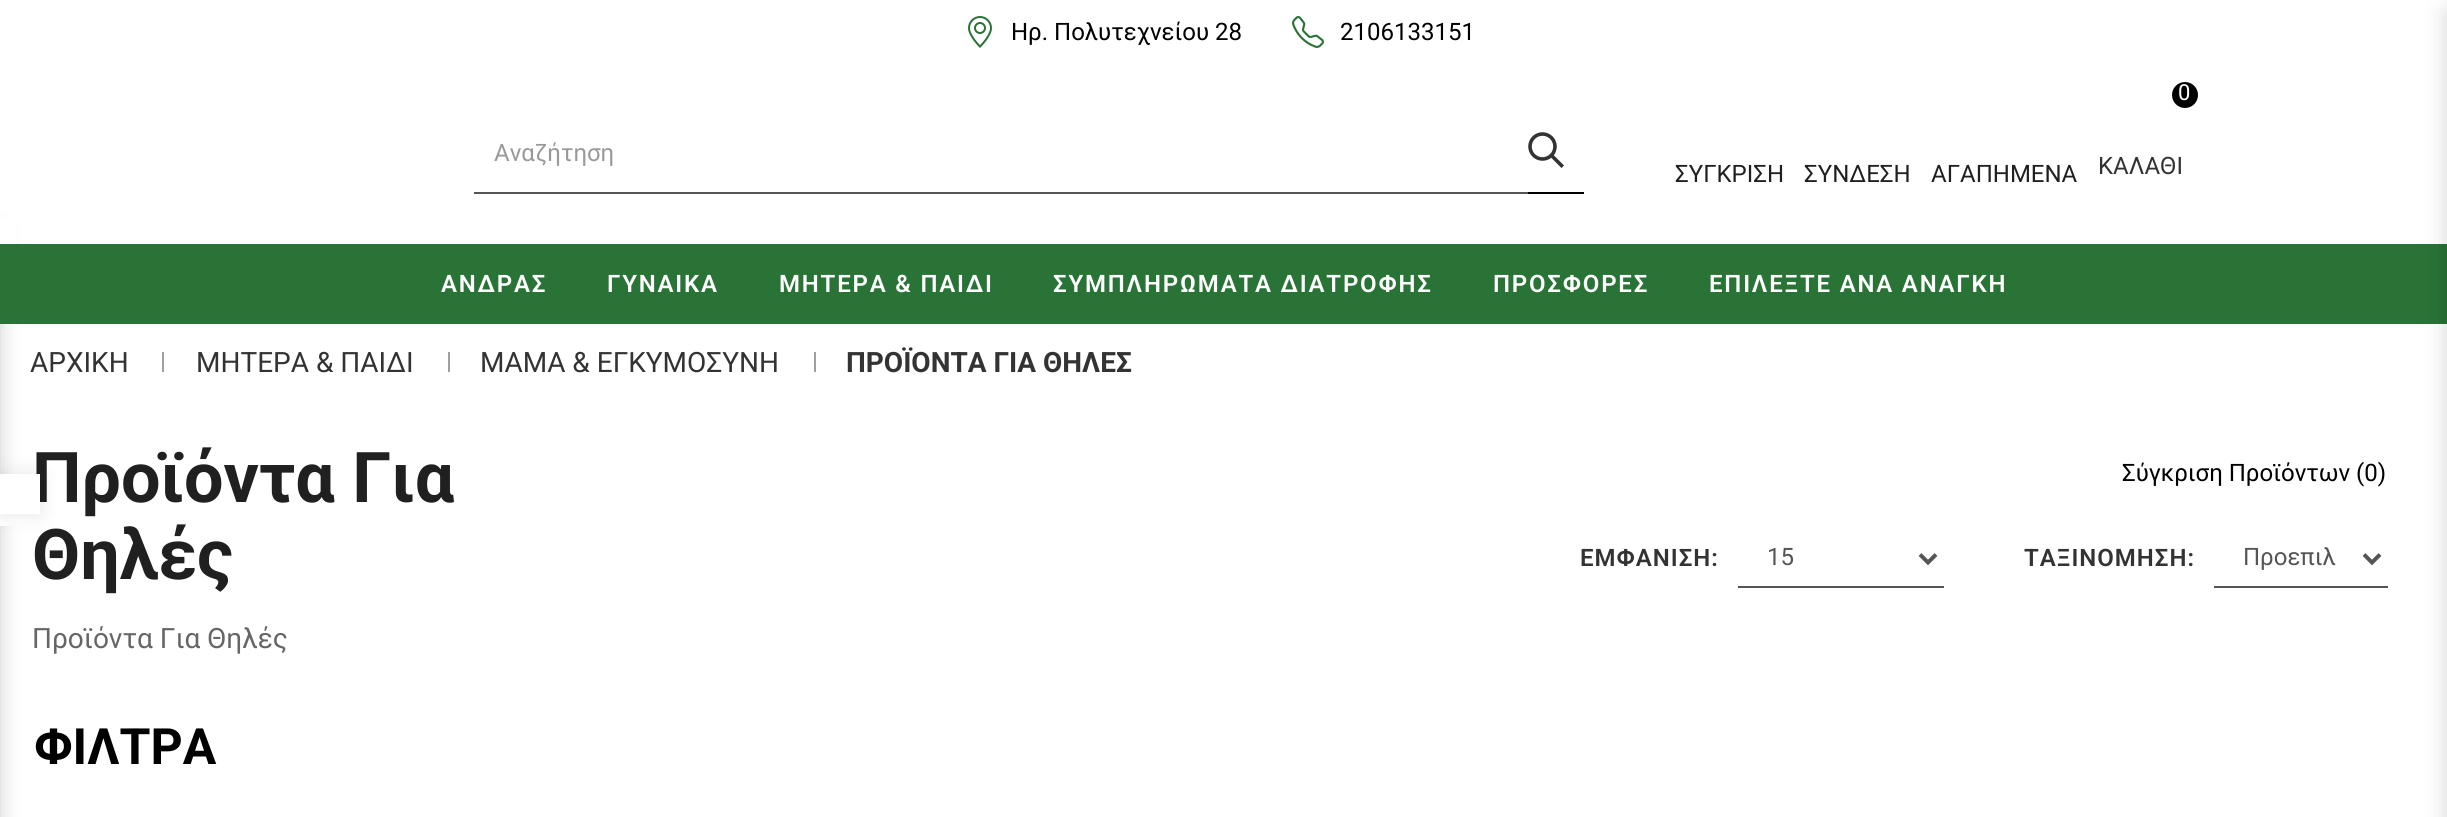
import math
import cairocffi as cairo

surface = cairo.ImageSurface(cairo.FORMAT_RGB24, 2447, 817)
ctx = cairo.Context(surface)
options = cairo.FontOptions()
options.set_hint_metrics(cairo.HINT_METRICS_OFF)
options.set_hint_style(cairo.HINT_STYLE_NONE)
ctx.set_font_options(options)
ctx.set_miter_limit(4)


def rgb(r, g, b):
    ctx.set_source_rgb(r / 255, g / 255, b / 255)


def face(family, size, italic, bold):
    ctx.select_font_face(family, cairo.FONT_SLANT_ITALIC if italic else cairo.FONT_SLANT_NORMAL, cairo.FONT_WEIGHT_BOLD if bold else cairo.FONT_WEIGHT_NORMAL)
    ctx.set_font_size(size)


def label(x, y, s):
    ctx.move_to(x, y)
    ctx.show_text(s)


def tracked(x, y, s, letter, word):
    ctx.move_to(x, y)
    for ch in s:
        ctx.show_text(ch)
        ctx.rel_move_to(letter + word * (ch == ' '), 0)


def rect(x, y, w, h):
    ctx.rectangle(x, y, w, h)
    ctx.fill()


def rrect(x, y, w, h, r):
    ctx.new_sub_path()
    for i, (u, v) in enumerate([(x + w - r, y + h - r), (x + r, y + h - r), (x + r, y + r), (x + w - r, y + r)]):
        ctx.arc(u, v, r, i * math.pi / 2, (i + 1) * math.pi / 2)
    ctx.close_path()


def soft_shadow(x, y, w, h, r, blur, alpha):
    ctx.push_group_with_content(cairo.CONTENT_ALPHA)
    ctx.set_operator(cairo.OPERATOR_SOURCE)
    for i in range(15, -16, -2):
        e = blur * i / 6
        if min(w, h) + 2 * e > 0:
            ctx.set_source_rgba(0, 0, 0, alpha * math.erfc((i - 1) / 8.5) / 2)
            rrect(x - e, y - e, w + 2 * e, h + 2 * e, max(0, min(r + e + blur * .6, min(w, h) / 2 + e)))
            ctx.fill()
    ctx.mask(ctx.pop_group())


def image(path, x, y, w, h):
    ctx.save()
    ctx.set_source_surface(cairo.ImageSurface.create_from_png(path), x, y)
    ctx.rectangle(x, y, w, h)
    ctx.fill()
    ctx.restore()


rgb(255, 255, 255)
ctx.paint()
image('image0.png', 968, 16, 24, 32)
face('Roboto', 24, 0, 0)
rgb(0, 0, 0)
label(1011, 40, 'Ηρ. Πολυτεχνείου 28')
image('image1.png', 1292, 16, 32, 32)
label(1340, 40, '2106133151')
rgb(0, 0, 0)
soft_shadow(-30, 230, 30, 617, 0, 10, 0.2)
rgb(255, 255, 255)
rect(0, 217, 16, 27)
rgb(85, 85, 85)
rect(474, 192, 1056, 2)
rgb(153, 153, 153)
label(494, 161, 'Αναζήτηση')
rgb(0, 0, 0)
rect(1528, 192, 56, 2)
ctx.new_path()
ctx.move_to(1561.5, 165.5)
ctx.line_to(1551.5, 155.5)
rgb(51, 51, 51)
ctx.set_line_width(3.6)
ctx.set_line_cap(cairo.LINE_CAP_SQUARE)
ctx.stroke()
ctx.arc(1542.5, 146.5, 12.5, 0, 2 * math.pi)
ctx.set_line_cap(cairo.LINE_CAP_BUTT)
ctx.stroke()
rgb(32, 32, 32)
label(1675, 182, 'ΣΥΓΚΡΙΣΗ')
label(1804, 182, 'ΣΥΝΔΕΣΗ')
label(1931, 182, 'ΑΓΑΠΗΜΕΝΑ')
rgb(0, 0, 0)
ctx.new_path()
ctx.arc(2185, 95, 13, 0, 2 * math.pi)
ctx.fill()
face('Roboto', 22, 0, 0)
rgb(255, 255, 255)
label(2178, 100, '0')
face('Roboto', 24, 0, 0)
rgb(51, 51, 51)
label(2098, 174, 'ΚΑΛΑΘΙ')
rgb(41, 115, 54)
rect(0, 244, 2447, 80)
rgb(0, 0, 0)
soft_shadow(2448, 12, 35, 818, 0, 12, 0.18)
face('Roboto', 70, 0, 1)
rgb(32, 32, 32)
label(32, 502, 'Προϊόντα Για')
label(32, 579, 'Θηλές')
rgb(255, 255, 255)
rect(0, 474, 40, 52)
ctx.save()
ctx.set_fill_rule(cairo.FILL_RULE_EVEN_ODD)
ctx.new_path()
ctx.move_to(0, 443)
ctx.line_to(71, 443)
ctx.line_to(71, 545)
ctx.line_to(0, 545)
ctx.close_path()
ctx.move_to(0, 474)
ctx.line_to(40, 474)
ctx.line_to(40, 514)
ctx.line_to(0, 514)
ctx.close_path()
ctx.clip()
rgb(0, 0, 0)
soft_shadow(0, 474, 40, 40, 0, 10, 0.1)
ctx.restore()
face('Roboto SemiBold', 24, 0, 0)
tracked(441, 292, 'ΑΝΔΡΑΣ', 1.8, 0)
tracked(607, 292, 'ΓΥΝΑΙΚΑ', 1.8, 0)
tracked(779, 292, 'ΜΗΤΕΡΑ & ΠΑΙΔΙ', 1.8, 0)
tracked(1053, 292, 'ΣΥΜΠΛΗΡΩΜΑΤΑ ΔΙΑΤΡΟΦΗΣ', 1.8, 0)
tracked(1493, 292, 'ΠΡΟΣΦΟΡΕΣ', 1.8, 0)
tracked(1709, 292, 'ΕΠΙΛΕΞΤΕ ΑΝΑ ΑΝΑΓΚΗ', 1.8, 0)
face('Roboto', 28, 0, 0)
rgb(51, 51, 51)
label(30, 372, 'ΑΡΧΙΚΗ')
rgb(159, 159, 159)
rect(162, 352, 2, 20)
rgb(51, 51, 51)
label(196, 372, 'ΜΗΤΕΡΑ & ΠΑΙΔΙ')
rgb(159, 159, 159)
rect(448, 352, 2, 20)
rgb(51, 51, 51)
label(480, 372, 'ΜΑΜΑ & ΕΓΚΥΜΟΣΥΝΗ')
rgb(159, 159, 159)
rect(814, 352, 2, 20)
face('Roboto', 28, 0, 1)
rgb(51, 51, 51)
label(846, 372, 'ΠΡΟΪΟΝΤΑ ΓΙΑ ΘΗΛΕΣ')
face('Roboto', 28, 0, 0)
rgb(102, 102, 102)
label(32, 648, 'Προϊόντα Για Θηλές')
face('Roboto', 50, 0, 1)
rgb(0, 0, 0)
label(34, 764, 'ΦΙΛΤΡΑ')
face('Roboto', 24, 0, 0)
label(2122, 481, 'Σύγκριση Προϊόντων (0)')
face('Roboto SemiBold', 24, 0, 0)
rgb(51, 51, 51)
tracked(1580, 566, 'ΕΜΦΑΝΙΣΗ:', 1, 0)
rgb(85, 85, 85)
rect(1738, 586, 206, 2)
ctx.new_path()
ctx.move_to(1920, 554.5)
ctx.line_to(1928, 562.5)
ctx.line_to(1936, 554.5)
ctx.set_line_width(4)
ctx.stroke()
face('Roboto', 24, 0, 0)
label(1767, 565, '15')
face('Roboto SemiBold', 24, 0, 0)
rgb(51, 51, 51)
tracked(2024, 566, 'ΤΑΞΙΝΟΜΗΣΗ:', 1, 0)
rgb(85, 85, 85)
rect(2214, 586, 174, 2)
ctx.new_path()
ctx.move_to(2364, 554.5)
ctx.line_to(2372, 562.5)
ctx.line_to(2380, 554.5)
ctx.stroke()
face('Roboto', 24, 0, 0)
label(2243, 565, 'Προεπιλ')
surface.write_to_png('render.png')
